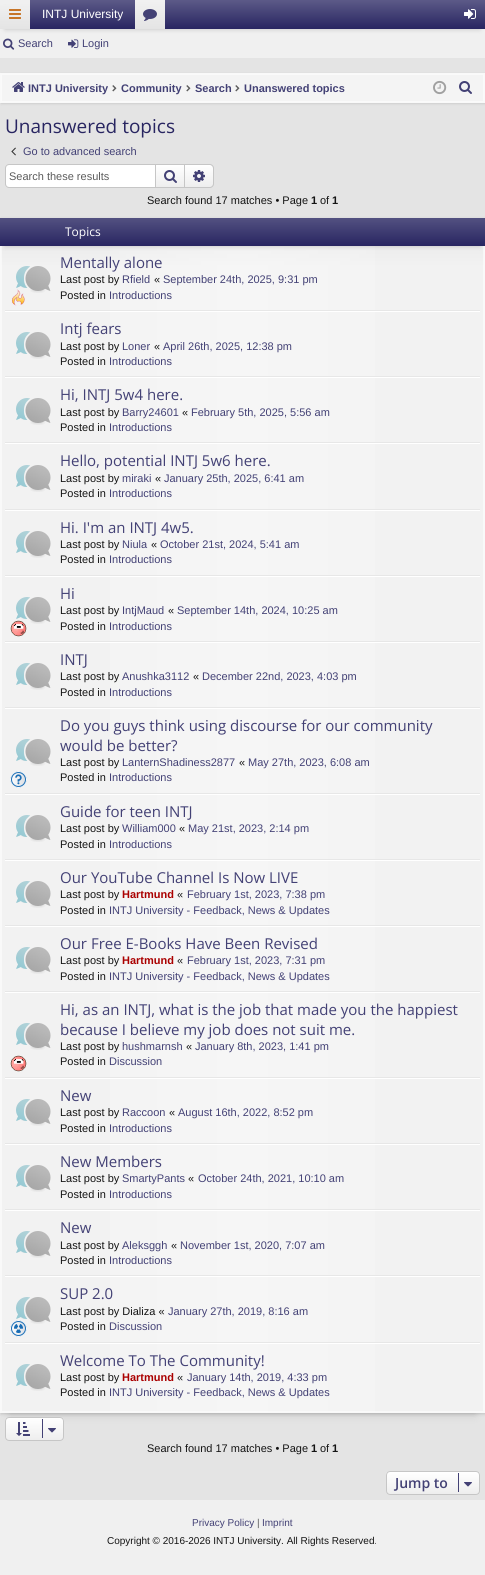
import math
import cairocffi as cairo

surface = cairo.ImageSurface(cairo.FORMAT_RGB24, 485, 1575)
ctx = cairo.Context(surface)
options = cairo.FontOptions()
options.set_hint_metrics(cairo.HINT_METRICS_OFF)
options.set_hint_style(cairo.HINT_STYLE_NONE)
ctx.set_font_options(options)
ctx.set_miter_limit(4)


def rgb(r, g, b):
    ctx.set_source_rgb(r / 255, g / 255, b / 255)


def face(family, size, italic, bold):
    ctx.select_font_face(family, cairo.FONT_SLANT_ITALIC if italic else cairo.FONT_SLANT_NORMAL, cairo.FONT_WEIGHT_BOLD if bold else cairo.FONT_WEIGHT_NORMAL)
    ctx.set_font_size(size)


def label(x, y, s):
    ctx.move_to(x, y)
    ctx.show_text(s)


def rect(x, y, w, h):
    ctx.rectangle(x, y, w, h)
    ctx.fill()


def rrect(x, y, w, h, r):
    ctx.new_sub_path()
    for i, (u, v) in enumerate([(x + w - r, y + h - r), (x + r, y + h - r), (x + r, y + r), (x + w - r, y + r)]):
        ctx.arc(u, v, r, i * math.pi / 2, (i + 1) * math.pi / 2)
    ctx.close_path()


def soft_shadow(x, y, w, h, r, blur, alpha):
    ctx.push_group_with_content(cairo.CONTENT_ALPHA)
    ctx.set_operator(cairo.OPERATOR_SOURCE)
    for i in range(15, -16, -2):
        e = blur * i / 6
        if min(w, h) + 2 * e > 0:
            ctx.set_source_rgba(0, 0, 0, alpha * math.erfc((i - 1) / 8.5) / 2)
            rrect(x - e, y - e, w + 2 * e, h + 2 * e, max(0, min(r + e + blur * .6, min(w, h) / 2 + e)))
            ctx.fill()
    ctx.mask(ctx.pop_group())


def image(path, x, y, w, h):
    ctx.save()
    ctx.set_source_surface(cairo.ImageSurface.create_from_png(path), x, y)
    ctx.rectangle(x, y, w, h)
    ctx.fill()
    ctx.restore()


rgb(240, 240, 240)
ctx.paint()
rgb(0, 0, 0)
soft_shadow(5, 9, 475, 20, 0, 2.5, 0.2)
gradient = cairo.LinearGradient(243, -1, 243, 29)
gradient.add_color_stop_rgba(0, 0.369, 0.361, 0.537, 1)
gradient.add_color_stop_rgba(1, 0.157, 0.145, 0.38, 1)
ctx.set_source(gradient)
rect(30, 0, 455, 29)
gradient = cairo.LinearGradient(15, -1, 15, 29)
gradient.add_color_stop_rgba(0, 0.949, 0.949, 0.949, 1)
gradient.add_color_stop_rgba(1, 0.894, 0.894, 0.894, 1)
ctx.set_source(gradient)
rect(0, 5, 30, 24)
image('image0.png', 9, 9, 12, 10)
face('Liberation Sans', 12, 0, 0)
rgb(255, 255, 255)
label(42, 18, 'INTJ University')
gradient = cairo.LinearGradient(150, -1, 150, 29)
gradient.add_color_stop_rgba(0, 0.949, 0.949, 0.949, 1)
gradient.add_color_stop_rgba(1, 0.894, 0.894, 0.894, 1)
ctx.set_source(gradient)
rect(135, 0, 30, 29)
image('image1.png', 143, 9, 14, 12)
image('image2.png', 464, 9, 12, 10)
image('image3.png', 3, 38, 12, 12)
face('Liberation Sans', 11, 0, 0)
rgb(67, 65, 117)
label(18, 47, 'Search')
image('image4.png', 68, 39, 11, 9)
label(82, 47, 'Login')
rgb(228, 228, 228)
rect(0, 58, 485, 1442)
rgb(0, 0, 0)
soft_shadow(1, 74, 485, 30, 0, 1, 0.1)
rgb(244, 244, 244)
ctx.rectangle(1.5, 74.5, 482, 27)
ctx.fill_preserve()
rgb(250, 250, 250)
ctx.set_line_width(1)
ctx.stroke()
ctx.rectangle(0.5, 73.5, 484, 29)
rgb(249, 249, 249)
ctx.stroke()
image('image5.png', 12, 82, 13, 10)
face('Liberation Sans', 11, 0, 1)
rgb(67, 65, 117)
label(28, 92, 'INTJ University')
image('image6.png', 112, 85, 5, 7)
label(121, 92, 'Community')
image('image6.png', 186, 85, 5, 7)
label(195, 92, 'Search')
image('image6.png', 235, 85, 5, 7)
label(244, 92, 'Unanswered topics')
image('image7.png', 433, 80, 14, 15)
image('image8.png', 459, 81, 13, 13)
face('Open Sans', 19, 0, 0)
rgb(40, 37, 97)
label(5, 133, 'Unanswered topics')
image('image9.png', 11, 147, 5, 9)
face('Liberation Sans', 11, 0, 0)
rgb(67, 65, 117)
label(23, 155, 'Go to advanced search')
rgb(255, 255, 255)
ctx.new_path()
ctx.move_to(9, 165)
ctx.line_to(155, 165)
ctx.line_to(155, 187)
ctx.line_to(9, 187)
ctx.curve_to(7.5, 187, 6, 185.5, 6, 184)
ctx.line_to(6, 168)
ctx.curve_to(6, 166.5, 7.5, 165, 9, 165)
ctx.close_path()
ctx.fill()
rgb(198, 198, 198)
ctx.set_fill_rule(cairo.FILL_RULE_EVEN_ODD)
ctx.new_path()
ctx.move_to(9, 164)
ctx.line_to(155, 164)
ctx.line_to(155, 188)
ctx.line_to(9, 188)
ctx.curve_to(7, 188, 5, 186, 5, 184)
ctx.line_to(5, 168)
ctx.curve_to(5, 166, 7, 164, 9, 164)
ctx.close_path()
ctx.move_to(9, 165)
ctx.line_to(155, 165)
ctx.line_to(155, 187)
ctx.line_to(9, 187)
ctx.curve_to(7, 187, 6, 186, 6, 184)
ctx.line_to(6, 168)
ctx.curve_to(6, 166, 7, 165, 9, 165)
ctx.close_path()
ctx.fill()
rgb(91, 91, 91)
label(9, 180, 'Search these results')
gradient = cairo.LinearGradient(170, 165, 170, 187)
gradient.add_color_stop_rgba(0, 1, 1, 1, 1)
gradient.add_color_stop_rgba(1, 0.933, 0.933, 0.933, 1)
ctx.set_source(gradient)
rect(156, 165, 28, 22)
ctx.rectangle(155.5, 164.5, 29, 23)
rgb(198, 198, 198)
ctx.stroke()
image('image10.png', 164, 170, 13, 13)
rgb(238, 238, 238)
ctx.new_path()
ctx.move_to(185, 165)
ctx.line_to(210, 165)
ctx.curve_to(211.5, 165, 213, 166.5, 213, 168)
ctx.line_to(213, 184)
ctx.curve_to(213, 185.5, 211.5, 187, 210, 187)
ctx.line_to(185, 187)
ctx.close_path()
ctx.fill()
gradient = cairo.LinearGradient(199, 165, 199, 187)
gradient.add_color_stop_rgba(0, 1, 1, 1, 1)
gradient.add_color_stop_rgba(1, 1, 1, 1, 0)
ctx.set_source(gradient)
ctx.new_path()
ctx.move_to(185, 165)
ctx.line_to(210, 165)
ctx.curve_to(211.5, 165, 213, 166.5, 213, 168)
ctx.line_to(213, 184)
ctx.curve_to(213, 185.5, 211.5, 187, 210, 187)
ctx.line_to(185, 187)
ctx.close_path()
ctx.fill()
rgb(198, 198, 198)
ctx.new_path()
ctx.move_to(185, 164)
ctx.line_to(210, 164)
ctx.curve_to(212, 164, 214, 166, 214, 168)
ctx.line_to(214, 184)
ctx.curve_to(214, 186, 212, 188, 210, 188)
ctx.line_to(185, 188)
ctx.close_path()
ctx.move_to(185, 165)
ctx.line_to(210, 165)
ctx.curve_to(211.5, 165, 213, 166.5, 213, 168)
ctx.line_to(213, 184)
ctx.curve_to(213, 185.5, 211.5, 187, 210, 187)
ctx.line_to(185, 187)
ctx.close_path()
ctx.fill()
image('image11.png', 193, 170, 12, 12)
rgb(20, 20, 20)
label(147, 204, 'Search found 17 matches • Page')
face('Liberation Sans', 11, 0, 1)
label(311, 204, '1')
face('Liberation Sans', 11, 0, 0)
label(320, 204, 'of')
face('Liberation Sans', 11, 0, 1)
label(332, 204, '1')
rgb(0, 0, 0)
soft_shadow(10, 238, 465, 1175, 0, 5, 0.2)
soft_shadow(1, 219, 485, 1195, 0, 1.5, 0.15)
gradient = cairo.LinearGradient(242, 219, 243, 1412)
gradient.add_color_stop_rgba(0, 0.918, 0.918, 0.918, 1)
gradient.add_color_stop_rgba(0.01, 0.91, 0.91, 0.91, 1)
gradient.add_color_stop_rgba(0.04, 0.949, 0.949, 0.949, 1)
ctx.set_source(gradient)
rect(1, 246, 483, 1166)
gradient = cairo.LinearGradient(1, 816, 484, 816)
gradient.add_color_stop_rgba(0, 1, 1, 1, 0)
gradient.add_color_stop_rgba(0.5, 1, 1, 1, 0.3)
gradient.add_color_stop_rgba(1, 1, 1, 1, 0)
ctx.set_source(gradient)
rect(110, 246, 265, 1166)
ctx.rectangle(1.5, 219.5, 482, 1192)
ctx.set_source_rgba(1, 1, 1, 0.5)
ctx.stroke()
ctx.rectangle(0.5, 218.5, 484, 1194)
rgb(249, 249, 249)
ctx.stroke()
rgb(0, 0, 0)
soft_shadow(5, 228, 475, 18, 0, 2.5, 0.2)
gradient = cairo.LinearGradient(243, 218, 243, 246)
gradient.add_color_stop_rgba(0, 0.325, 0.318, 0.506, 1)
gradient.add_color_stop_rgba(1, 0.157, 0.145, 0.38, 1)
ctx.set_source(gradient)
rect(0, 218, 485, 28)
face('Open Sans', 12, 0, 0)
rgb(255, 255, 255)
label(65, 236, 'Topics')
rgb(231, 231, 231)
rect(5, 310, 475, 1)
image('image12.png', 16, 266, 35, 27)
image('image13.png', 11, 289, 14, 17)
face('Open Sans', 15, 0, 0)
rgb(67, 65, 117)
label(60, 268, 'Mentally alone')
face('Liberation Sans', 11, 0, 0)
rgb(20, 20, 20)
label(60, 283, 'Last post by')
rgb(67, 65, 117)
label(122, 283, 'Rfield')
rgb(20, 20, 20)
label(154, 283, '«')
rgb(67, 65, 117)
label(163, 283, 'September 24th, 2025, 9:31 pm')
rgb(20, 20, 20)
label(60, 299, 'Posted in')
rgb(67, 65, 117)
label(109, 299, 'Introductions')
rgb(255, 255, 255)
rect(5, 311, 475, 1)
rgb(231, 231, 231)
rect(5, 376, 475, 1)
image('image12.png', 16, 332, 35, 27)
face('Open Sans', 15, 0, 0)
rgb(67, 65, 117)
label(60, 334, 'Intj fears')
face('Liberation Sans', 11, 0, 0)
rgb(20, 20, 20)
label(60, 350, 'Last post by')
rgb(67, 65, 117)
label(122, 350, 'Loner')
rgb(20, 20, 20)
label(154, 350, '«')
rgb(67, 65, 117)
label(163, 350, 'April 26th, 2025, 12:38 pm')
rgb(20, 20, 20)
label(60, 365, 'Posted in')
rgb(67, 65, 117)
label(109, 365, 'Introductions')
rgb(255, 255, 255)
rect(5, 377, 475, 1)
rgb(231, 231, 231)
rect(5, 442, 475, 1)
image('image12.png', 16, 398, 35, 27)
face('Open Sans', 15, 0, 0)
rgb(67, 65, 117)
label(60, 400, 'Hi, INTJ 5w4 here.')
face('Liberation Sans', 11, 0, 0)
rgb(20, 20, 20)
label(60, 416, 'Last post by')
rgb(67, 65, 117)
label(122, 416, 'Barry24601')
rgb(20, 20, 20)
label(182, 416, '«')
rgb(67, 65, 117)
label(191, 416, 'February 5th, 2025, 5:56 am')
rgb(20, 20, 20)
label(60, 431, 'Posted in')
rgb(67, 65, 117)
label(109, 431, 'Introductions')
rgb(255, 255, 255)
rect(5, 443, 475, 1)
rgb(231, 231, 231)
rect(5, 509, 475, 1)
image('image12.png', 16, 465, 35, 27)
face('Open Sans', 15, 0, 0)
rgb(67, 65, 117)
label(60, 466, 'Hello, potential INTJ 5w6 here.')
face('Liberation Sans', 11, 0, 0)
rgb(20, 20, 20)
label(60, 482, 'Last post by')
rgb(67, 65, 117)
label(122, 482, 'miraki')
rgb(20, 20, 20)
label(155, 482, '«')
rgb(67, 65, 117)
label(164, 482, 'January 25th, 2025, 6:41 am')
rgb(20, 20, 20)
label(60, 497, 'Posted in')
rgb(67, 65, 117)
label(109, 497, 'Introductions')
rgb(255, 255, 255)
rect(5, 510, 475, 1)
rgb(231, 231, 231)
rect(5, 575, 475, 1)
image('image12.png', 16, 531, 35, 27)
face('Open Sans', 15, 0, 0)
rgb(67, 65, 117)
label(60, 533, 'Hi. I\'m an INTJ 4w5.')
face('Liberation Sans', 11, 0, 0)
rgb(20, 20, 20)
label(60, 548, 'Last post by')
rgb(67, 65, 117)
label(122, 548, 'Niula')
rgb(20, 20, 20)
label(151, 548, '«')
rgb(67, 65, 117)
label(160, 548, 'October 21st, 2024, 5:41 am')
rgb(20, 20, 20)
label(60, 563, 'Posted in')
rgb(67, 65, 117)
label(109, 563, 'Introductions')
rgb(255, 255, 255)
rect(5, 576, 475, 1)
rgb(231, 231, 231)
rect(5, 641, 475, 1)
image('image12.png', 16, 597, 35, 27)
image('image14.png', 10, 620, 17, 17)
face('Open Sans', 15, 0, 0)
rgb(67, 65, 117)
label(60, 599, 'Hi')
face('Liberation Sans', 11, 0, 0)
rgb(20, 20, 20)
label(60, 614, 'Last post by')
rgb(67, 65, 117)
label(122, 614, 'IntjMaud')
rgb(20, 20, 20)
label(168, 614, '«')
rgb(67, 65, 117)
label(177, 614, 'September 14th, 2024, 10:25 am')
rgb(20, 20, 20)
label(60, 630, 'Posted in')
rgb(67, 65, 117)
label(109, 630, 'Introductions')
rgb(255, 255, 255)
rect(5, 642, 475, 1)
rgb(231, 231, 231)
rect(5, 707, 475, 1)
image('image12.png', 16, 663, 35, 27)
face('Open Sans', 15, 0, 0)
rgb(67, 65, 117)
label(60, 665, 'INTJ')
face('Liberation Sans', 11, 0, 0)
rgb(20, 20, 20)
label(60, 680, 'Last post by')
rgb(67, 65, 117)
label(122, 680, 'Anushka3112')
rgb(20, 20, 20)
label(193, 680, '«')
rgb(67, 65, 117)
label(202, 680, 'December 22nd, 2023, 4:03 pm')
rgb(20, 20, 20)
label(60, 696, 'Posted in')
rgb(67, 65, 117)
label(109, 696, 'Introductions')
rgb(255, 255, 255)
rect(5, 708, 475, 1)
rgb(231, 231, 231)
rect(5, 793, 475, 1)
image('image12.png', 16, 739, 35, 27)
image('image15.png', 10, 771, 17, 17)
face('Open Sans', 15, 0, 0)
rgb(67, 65, 117)
label(60, 731, 'Do you guys think using discourse for our community')
label(60, 751, 'would be better?')
face('Liberation Sans', 11, 0, 0)
rgb(20, 20, 20)
label(60, 766, 'Last post by')
rgb(67, 65, 117)
label(122, 766, 'LanternShadiness2877')
rgb(20, 20, 20)
label(239, 766, '«')
rgb(67, 65, 117)
label(248, 766, 'May 27th, 2023, 6:08 am')
rgb(20, 20, 20)
label(60, 781, 'Posted in')
rgb(67, 65, 117)
label(109, 781, 'Introductions')
rgb(255, 255, 255)
rect(5, 794, 475, 1)
rgb(231, 231, 231)
rect(5, 859, 475, 1)
image('image12.png', 16, 815, 35, 27)
face('Open Sans', 15, 0, 0)
rgb(67, 65, 117)
label(60, 817, 'Guide for teen INTJ')
face('Liberation Sans', 11, 0, 0)
rgb(20, 20, 20)
label(60, 832, 'Last post by')
rgb(67, 65, 117)
label(122, 832, 'William000')
rgb(20, 20, 20)
label(179, 832, '«')
rgb(67, 65, 117)
label(188, 832, 'May 21st, 2023, 2:14 pm')
rgb(20, 20, 20)
label(60, 848, 'Posted in')
rgb(67, 65, 117)
label(109, 848, 'Introductions')
rgb(255, 255, 255)
rect(5, 860, 475, 1)
rgb(231, 231, 231)
rect(5, 925, 475, 1)
image('image12.png', 16, 881, 35, 27)
face('Open Sans', 15, 0, 0)
rgb(67, 65, 117)
label(60, 883, 'Our YouTube Channel Is Now LIVE')
face('Liberation Sans', 11, 0, 0)
rgb(20, 20, 20)
label(60, 898, 'Last post by')
face('Liberation Sans', 11, 0, 1)
rgb(170, 0, 0)
label(122, 898, 'Hartmund')
face('Liberation Sans', 11, 0, 0)
rgb(20, 20, 20)
label(177, 898, '«')
rgb(67, 65, 117)
label(187, 898, 'February 1st, 2023, 7:38 pm')
rgb(20, 20, 20)
label(60, 914, 'Posted in')
rgb(67, 65, 117)
label(109, 914, 'INTJ University - Feedback, News & Updates')
rgb(255, 255, 255)
rect(5, 926, 475, 1)
rgb(231, 231, 231)
rect(5, 991, 475, 1)
image('image12.png', 16, 947, 35, 27)
face('Open Sans', 15, 0, 0)
rgb(67, 65, 117)
label(60, 949, 'Our Free E-Books Have Been Revised')
face('Liberation Sans', 11, 0, 0)
rgb(20, 20, 20)
label(60, 964, 'Last post by')
face('Liberation Sans', 11, 0, 1)
rgb(170, 0, 0)
label(122, 964, 'Hartmund')
face('Liberation Sans', 11, 0, 0)
rgb(20, 20, 20)
label(177, 964, '«')
rgb(67, 65, 117)
label(187, 964, 'February 1st, 2023, 7:31 pm')
rgb(20, 20, 20)
label(60, 980, 'Posted in')
rgb(67, 65, 117)
label(109, 980, 'INTJ University - Feedback, News & Updates')
rgb(255, 255, 255)
rect(5, 992, 475, 1)
rgb(231, 231, 231)
rect(5, 1077, 475, 1)
image('image12.png', 16, 1023, 35, 27)
image('image14.png', 10, 1055, 17, 17)
face('Open Sans', 15, 0, 0)
rgb(67, 65, 117)
label(60, 1015, 'Hi, as an INTJ, what is the job that made you the happiest')
label(60, 1035, 'because I believe my job does not suit me.')
face('Liberation Sans', 11, 0, 0)
rgb(20, 20, 20)
label(60, 1050, 'Last post by')
rgb(67, 65, 117)
label(122, 1050, 'hushmarnsh')
rgb(20, 20, 20)
label(186, 1050, '«')
rgb(67, 65, 117)
label(195, 1050, 'January 8th, 2023, 1:41 pm')
rgb(20, 20, 20)
label(60, 1065, 'Posted in')
rgb(67, 65, 117)
label(109, 1065, 'Discussion')
rgb(255, 255, 255)
rect(5, 1078, 475, 1)
rgb(231, 231, 231)
rect(5, 1143, 475, 1)
image('image12.png', 16, 1099, 35, 27)
face('Open Sans', 15, 0, 0)
rgb(67, 65, 117)
label(60, 1101, 'New')
face('Liberation Sans', 11, 0, 0)
rgb(20, 20, 20)
label(60, 1116, 'Last post by')
rgb(67, 65, 117)
label(122, 1116, 'Raccoon')
rgb(20, 20, 20)
label(169, 1116, '«')
rgb(67, 65, 117)
label(178, 1116, 'August 16th, 2022, 8:52 pm')
rgb(20, 20, 20)
label(60, 1132, 'Posted in')
rgb(67, 65, 117)
label(109, 1132, 'Introductions')
rgb(255, 255, 255)
rect(5, 1144, 475, 1)
rgb(231, 231, 231)
rect(5, 1209, 475, 1)
image('image12.png', 16, 1165, 35, 27)
face('Open Sans', 15, 0, 0)
rgb(67, 65, 117)
label(60, 1167, 'New Members')
face('Liberation Sans', 11, 0, 0)
rgb(20, 20, 20)
label(60, 1182, 'Last post by')
rgb(67, 65, 117)
label(122, 1182, 'SmartyPants')
rgb(20, 20, 20)
label(188, 1182, '«')
rgb(67, 65, 117)
label(198, 1182, 'October 24th, 2021, 10:10 am')
rgb(20, 20, 20)
label(60, 1198, 'Posted in')
rgb(67, 65, 117)
label(109, 1198, 'Introductions')
rgb(255, 255, 255)
rect(5, 1210, 475, 1)
rgb(231, 231, 231)
rect(5, 1275, 475, 1)
image('image12.png', 16, 1231, 35, 27)
face('Open Sans', 15, 0, 0)
rgb(67, 65, 117)
label(60, 1233, 'New')
face('Liberation Sans', 11, 0, 0)
rgb(20, 20, 20)
label(60, 1249, 'Last post by')
rgb(67, 65, 117)
label(122, 1249, 'Aleksggh')
rgb(20, 20, 20)
label(171, 1249, '«')
rgb(67, 65, 117)
label(180, 1249, 'November 1st, 2020, 7:07 am')
rgb(20, 20, 20)
label(60, 1264, 'Posted in')
rgb(67, 65, 117)
label(109, 1264, 'Introductions')
rgb(255, 255, 255)
rect(5, 1276, 475, 1)
rgb(231, 231, 231)
rect(5, 1342, 475, 1)
image('image12.png', 16, 1297, 35, 27)
image('image16.png', 10, 1320, 17, 17)
face('Open Sans', 15, 0, 0)
rgb(67, 65, 117)
label(60, 1299, 'SUP 2.0')
face('Liberation Sans', 11, 0, 0)
rgb(20, 20, 20)
label(60, 1315, 'Last post by Dializa «')
rgb(67, 65, 117)
label(168, 1315, 'January 27th, 2019, 8:16 am')
rgb(20, 20, 20)
label(60, 1330, 'Posted in')
rgb(67, 65, 117)
label(109, 1330, 'Discussion')
rgb(255, 255, 255)
rect(5, 1343, 475, 1)
image('image12.png', 16, 1364, 35, 27)
face('Open Sans', 15, 0, 0)
rgb(67, 65, 117)
label(60, 1366, 'Welcome To The Community!')
face('Liberation Sans', 11, 0, 0)
rgb(20, 20, 20)
label(60, 1381, 'Last post by')
face('Liberation Sans', 11, 0, 1)
rgb(170, 0, 0)
label(122, 1381, 'Hartmund')
face('Liberation Sans', 11, 0, 0)
rgb(20, 20, 20)
label(177, 1381, '«')
rgb(67, 65, 117)
label(187, 1381, 'January 14th, 2019, 4:33 pm')
rgb(20, 20, 20)
label(60, 1396, 'Posted in')
rgb(67, 65, 117)
label(109, 1396, 'INTJ University - Feedback, News & Updates')
rgb(238, 238, 238)
rrect(5, 1417, 59, 24, 4)
ctx.fill()
ctx.save()
ctx.set_fill_rule(cairo.FILL_RULE_WINDING)
rrect(5, 1417, 59, 24, 4)
ctx.clip()
gradient = cairo.LinearGradient(35, 1418, 35, 1440)
gradient.add_color_stop_rgba(0, 1, 1, 1, 1)
gradient.add_color_stop_rgba(1, 1, 1, 1, 0)
ctx.set_source(gradient)
rect(5, 1418, 59, 22)
ctx.restore()
rrect(5.5, 1417.5, 58, 23, 3.5)
rgb(198, 198, 198)
ctx.stroke()
image('image17.png', 16, 1422, 14, 14)
rgb(67, 65, 117)
rect(42, 1419, 1, 19)
image('image18.png', 48, 1428, 8, 5)
rgb(20, 20, 20)
label(147, 1452, 'Search found 17 matches • Page')
face('Liberation Sans', 11, 0, 1)
label(311, 1452, '1')
face('Liberation Sans', 11, 0, 0)
label(320, 1452, 'of')
face('Liberation Sans', 11, 0, 1)
label(332, 1452, '1')
rgb(238, 238, 238)
rrect(386, 1471, 94, 24, 4)
ctx.fill()
ctx.save()
ctx.set_fill_rule(cairo.FILL_RULE_WINDING)
rrect(386, 1471, 94, 24, 4)
ctx.clip()
gradient = cairo.LinearGradient(433, 1472, 433, 1494)
gradient.add_color_stop_rgba(0, 1, 1, 1, 1)
gradient.add_color_stop_rgba(1, 1, 1, 1, 0)
ctx.set_source(gradient)
rect(386, 1472, 94, 22)
ctx.restore()
rrect(386.5, 1471.5, 93, 23, 3.5)
rgb(198, 198, 198)
ctx.stroke()
face('Open Sans SemiBold', 14, 0, 0)
rgb(67, 65, 117)
label(395, 1488, 'Jump to')
rect(458, 1473, 1, 19)
image('image18.png', 464, 1482, 8, 5)
face('Liberation Sans', 10, 0, 0)
label(192, 1526, 'Privacy Policy')
rgb(91, 91, 91)
label(257, 1526, '|')
rgb(67, 65, 117)
label(262, 1526, 'Imprint')
rgb(20, 20, 20)
label(107, 1544, 'Copyright © 2016-2026 INTJ University. All Rights Reserved.')
surface.write_to_png('render.png')
